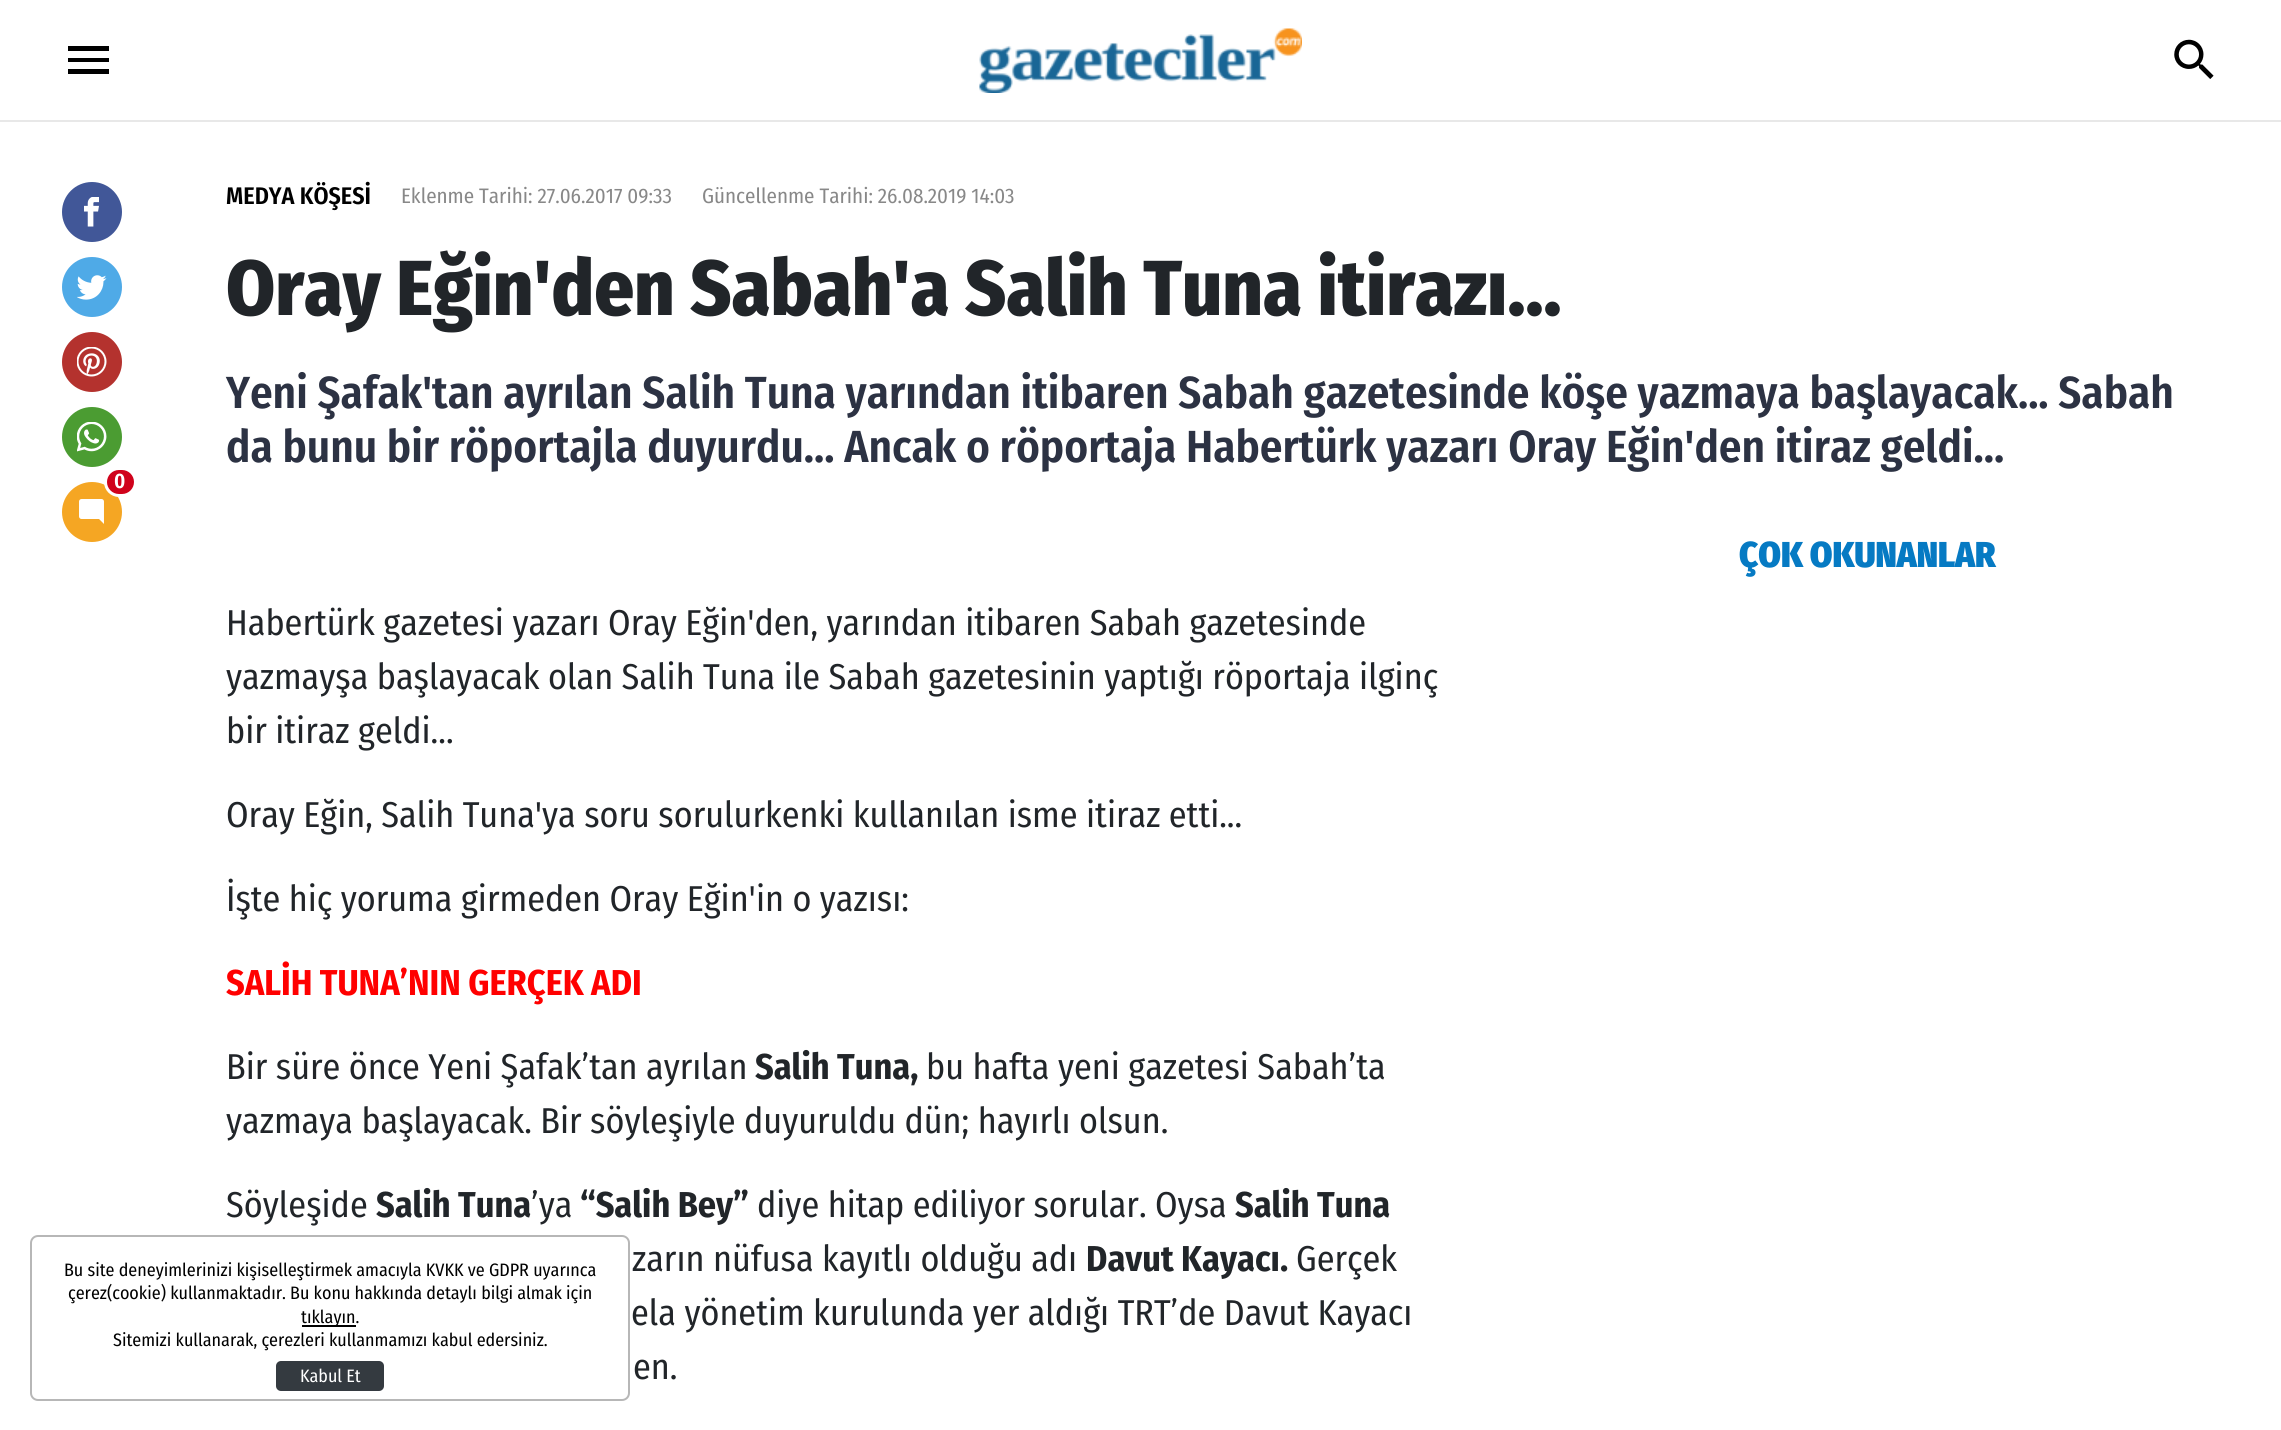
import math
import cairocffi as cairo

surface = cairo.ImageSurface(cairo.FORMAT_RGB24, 2281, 1430)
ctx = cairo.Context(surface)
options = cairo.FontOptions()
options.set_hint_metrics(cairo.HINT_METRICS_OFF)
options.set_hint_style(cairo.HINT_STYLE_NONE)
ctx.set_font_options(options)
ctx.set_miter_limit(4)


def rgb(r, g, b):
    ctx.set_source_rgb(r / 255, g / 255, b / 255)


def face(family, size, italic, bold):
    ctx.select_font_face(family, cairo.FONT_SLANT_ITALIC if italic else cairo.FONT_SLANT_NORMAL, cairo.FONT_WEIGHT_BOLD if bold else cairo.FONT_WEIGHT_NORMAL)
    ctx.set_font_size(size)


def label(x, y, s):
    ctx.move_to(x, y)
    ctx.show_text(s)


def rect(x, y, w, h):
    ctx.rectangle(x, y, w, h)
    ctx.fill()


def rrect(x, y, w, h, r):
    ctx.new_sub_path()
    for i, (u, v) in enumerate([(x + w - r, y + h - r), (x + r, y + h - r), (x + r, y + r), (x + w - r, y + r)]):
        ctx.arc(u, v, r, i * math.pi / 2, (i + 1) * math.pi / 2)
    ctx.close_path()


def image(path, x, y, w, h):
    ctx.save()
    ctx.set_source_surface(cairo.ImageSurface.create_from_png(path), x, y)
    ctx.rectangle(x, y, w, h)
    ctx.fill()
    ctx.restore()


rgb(255, 255, 255)
ctx.paint()
rgb(232, 232, 232)
rect(0, 120, 2281, 2)
rgb(0, 0, 0)
ctx.new_path()
ctx.move_to(68, 46)
ctx.line_to(109, 46)
ctx.line_to(109, 51)
ctx.line_to(68, 51)
ctx.close_path()
ctx.move_to(68, 62)
ctx.line_to(68, 58)
ctx.line_to(109, 58)
ctx.line_to(109, 62)
ctx.close_path()
ctx.move_to(68, 74)
ctx.line_to(68, 69)
ctx.line_to(109, 69)
ctx.line_to(109, 74)
ctx.close_path()
ctx.fill()
image('image0.png', 979, 28, 323, 65)
image('image1.png', 2174, 39, 40, 40)
face('Fira Sans Condensed SemiBold', 24, 0, 0)
label(226, 204, 'MEDYA KÖŞESİ')
face('Fira Sans Condensed', 21, 0, 0)
rgb(136, 136, 136)
label(401, 203, 'Eklenme Tarihi: 27.06.2017 09:33')
label(702, 203, 'Güncellenme Tarihi: 26.08.2019 14:03')
face('Fira Sans Condensed ExtraBold', 78, 0, 0)
rgb(33, 37, 41)
label(226, 315, 'Oray Eğin\'den Sabah\'a Salih Tuna itirazı...')
face('Fira Sans Condensed SemiBold', 45, 0, 0)
rgb(44, 50, 67)
label(226, 408, 'Yeni Şafak\'tan ayrılan Salih Tuna yarından itibaren Sabah gazetesinde köşe yazmaya başlayacak... Sabah')
label(226, 462, 'da bunu bir röportajla duyurdu... Ancak o röportaja Habertürk yazarı Oray Eğin\'den itiraz geldi...')
rgb(65, 87, 152)
ctx.new_path()
ctx.arc(92, 212, 30, 0, 2 * math.pi)
ctx.fill()
image('image2.png', 84, 197, 15, 30)
rgb(79, 170, 231)
ctx.arc(92, 287, 30, 0, 2 * math.pi)
ctx.fill()
image('image3.png', 77, 275, 30, 25)
rgb(180, 50, 46)
ctx.arc(92, 362, 30, 0, 2 * math.pi)
ctx.fill()
image('image4.png', 77, 347, 30, 30)
rgb(75, 156, 50)
ctx.arc(92, 437, 30, 0, 2 * math.pi)
ctx.fill()
image('image5.png', 77, 422, 30, 30)
rgb(245, 166, 35)
ctx.arc(92, 512, 30, 0, 2 * math.pi)
ctx.fill()
rgb(208, 2, 27)
rrect(105.5, 468.5, 30, 27, 13.5)
ctx.fill_preserve()
rgb(255, 255, 255)
ctx.set_line_width(3)
ctx.stroke()
face('Fira Sans Condensed SemiBold', 21, 0, 0)
label(114, 488, '0')
image('image6.png', 79, 499, 25, 25)
face('Fira Sans Condensed Black', 36, 0, 0)
rgb(6, 122, 195)
label(1739, 567, 'ÇOK OKUNANLAR')
face('Fira Sans Condensed', 36, 0, 0)
rgb(33, 37, 41)
label(226, 635, 'Habertürk gazetesi yazarı Oray Eğin\'den, yarından itibaren Sabah gazetesinde')
label(226, 689, 'yazmayşa başlayacak olan Salih Tuna ile Sabah gazetesinin yaptığı röportaja ilginç')
label(226, 743, 'bir itiraz geldi...')
label(226, 827, 'Oray Eğin, Salih Tuna\'ya soru sorulurkenki kullanılan isme itiraz etti...')
label(226, 911, 'İşte hiç yoruma girmeden Oray Eğin\'in o yazısı:')
face('Fira Sans Condensed', 36, 0, 1)
rgb(255, 0, 0)
label(226, 995, 'SALİH TUNA’NIN GERÇEK ADI')
face('Fira Sans Condensed', 36, 0, 0)
rgb(33, 37, 41)
label(226, 1079, 'Bir süre önce Yeni Şafak’tan ayrılan')
face('Fira Sans Condensed', 36, 0, 1)
label(755, 1079, 'Salih Tuna,')
face('Fira Sans Condensed', 36, 0, 0)
label(926, 1079, 'bu hafta yeni gazetesi Sabah’ta')
label(226, 1133, 'yazmaya başlayacak. Bir söyleşiyle duyuruldu dün; hayırlı olsun.')
label(226, 1217, 'Söyleşide')
face('Fira Sans Condensed', 36, 0, 1)
label(376, 1217, 'Salih Tuna')
face('Fira Sans Condensed', 36, 0, 0)
label(531, 1217, '’ya')
face('Fira Sans Condensed', 36, 0, 1)
label(580, 1217, '“Salih Bey”')
face('Fira Sans Condensed', 36, 0, 0)
label(757, 1217, 'diye hitap ediliyor sorular. Oysa')
face('Fira Sans Condensed', 36, 0, 1)
label(1235, 1217, 'Salih Tuna')
face('Fira Sans Condensed', 36, 0, 0)
label(632, 1271, 'zarın nüfusa kayıtlı olduğu adı')
face('Fira Sans Condensed', 36, 0, 1)
label(1086, 1271, 'Davut Kayacı.')
face('Fira Sans Condensed', 36, 0, 0)
label(1296, 1271, 'Gerçek')
label(631, 1325, 'ela yönetim kurulunda yer aldığı TRT’de Davut Kayacı')
label(633, 1379, 'en.')
rrect(31, 1236, 598, 164, 7)
rgb(183, 183, 183)
ctx.set_line_width(2)
ctx.stroke()
face('Fira Sans Condensed', 18, 0, 0)
rgb(0, 0, 0)
label(64, 1276, 'Bu site deneyimlerinizi kişiselleştirmek amacıyla KVKK ve GDPR uyarınca')
label(68, 1299, 'çerez(cookie) kullanmaktadır. Bu konu hakkında detaylı bilgi almak için')
rect(302, 1325, 54, 2)
label(301, 1323, 'tıklayın.')
label(113, 1346, 'Sitemizi kullanarak, çerezleri kullanmamızı kabul edersiniz.')
rgb(52, 58, 64)
rrect(276, 1361, 108, 30, 5)
ctx.fill()
rgb(255, 255, 255)
label(300, 1382, 'Kabul Et')
surface.write_to_png('render.png')
